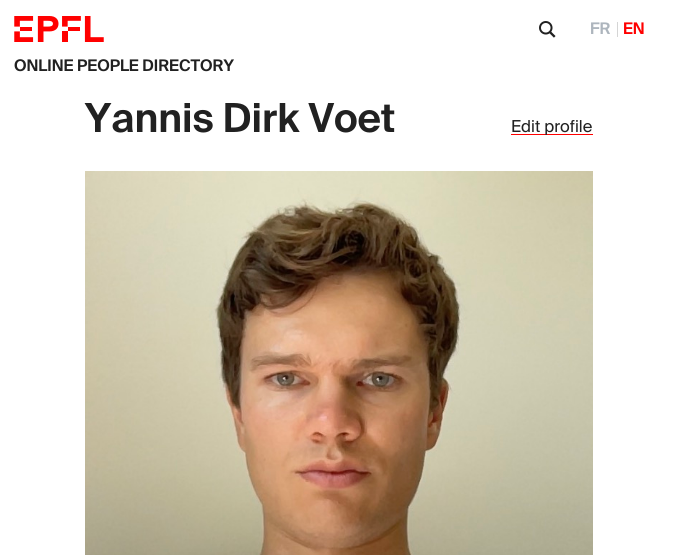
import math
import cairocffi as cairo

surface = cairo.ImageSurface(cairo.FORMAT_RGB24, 678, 555)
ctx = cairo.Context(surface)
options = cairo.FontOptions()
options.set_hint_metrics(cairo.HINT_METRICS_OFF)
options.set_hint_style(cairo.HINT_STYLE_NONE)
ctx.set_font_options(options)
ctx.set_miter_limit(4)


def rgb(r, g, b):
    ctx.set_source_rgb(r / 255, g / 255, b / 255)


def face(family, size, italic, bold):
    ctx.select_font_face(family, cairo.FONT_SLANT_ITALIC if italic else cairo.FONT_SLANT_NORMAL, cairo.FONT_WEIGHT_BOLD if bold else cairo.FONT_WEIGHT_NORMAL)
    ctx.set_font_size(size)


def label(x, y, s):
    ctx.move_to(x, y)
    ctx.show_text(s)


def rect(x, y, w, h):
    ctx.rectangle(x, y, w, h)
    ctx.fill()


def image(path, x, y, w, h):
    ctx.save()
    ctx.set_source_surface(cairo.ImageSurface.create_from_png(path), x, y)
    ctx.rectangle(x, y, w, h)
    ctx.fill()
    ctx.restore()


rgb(255, 255, 255)
ctx.paint()
image('image0.png', 14, 16, 90, 26)
image('image1.png', 539, 21, 17, 17)
face('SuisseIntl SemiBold', 16, 0, 0)
rgb(173, 181, 189)
label(590, 34, 'FR')
rgb(213, 213, 213)
rect(617, 22, 1, 15)
rgb(255, 0, 0)
label(623, 34, 'EN')
rgb(33, 33, 33)
label(14, 71, 'ONLINE PEOPLE DIRECTORY')
face('SuisseIntl SemiBold', 40, 0, 0)
label(85, 132, 'Yannis Dirk Voet')
rgb(255, 0, 0)
rect(511, 134, 82, 1)
face('SuisseIntl', 16.5, 0, 0)
rgb(33, 33, 33)
label(511, 132, 'Edit profile')
image('image2.png', 85, 171, 508, 384)
surface.write_to_png('render.png')
